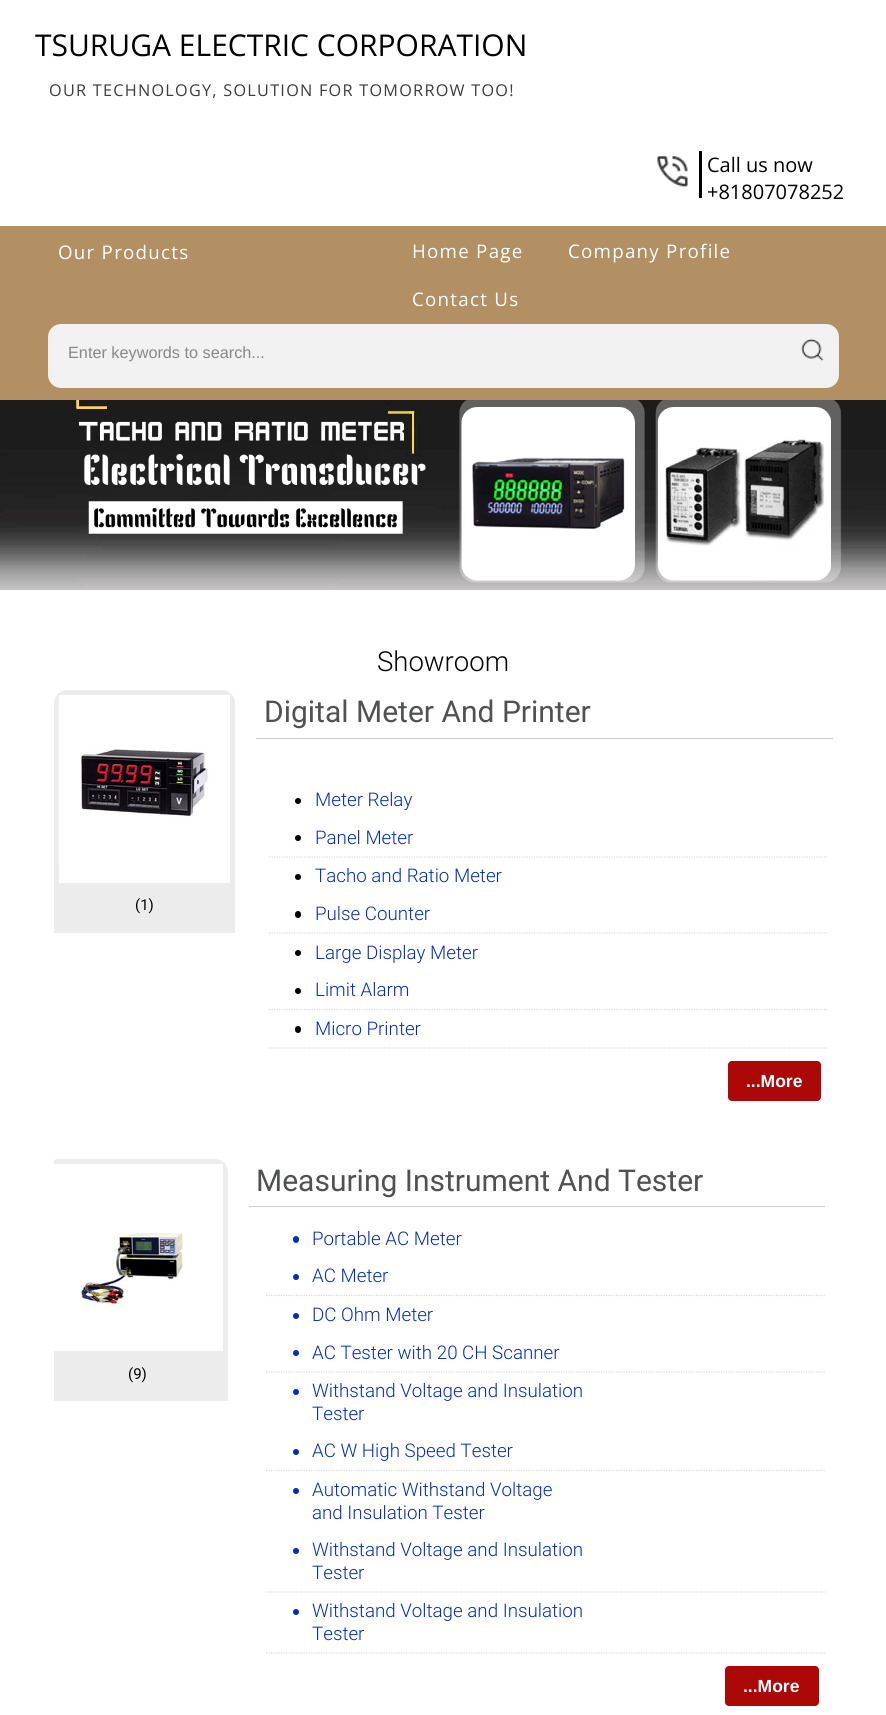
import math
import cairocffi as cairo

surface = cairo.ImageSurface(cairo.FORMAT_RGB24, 886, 1715)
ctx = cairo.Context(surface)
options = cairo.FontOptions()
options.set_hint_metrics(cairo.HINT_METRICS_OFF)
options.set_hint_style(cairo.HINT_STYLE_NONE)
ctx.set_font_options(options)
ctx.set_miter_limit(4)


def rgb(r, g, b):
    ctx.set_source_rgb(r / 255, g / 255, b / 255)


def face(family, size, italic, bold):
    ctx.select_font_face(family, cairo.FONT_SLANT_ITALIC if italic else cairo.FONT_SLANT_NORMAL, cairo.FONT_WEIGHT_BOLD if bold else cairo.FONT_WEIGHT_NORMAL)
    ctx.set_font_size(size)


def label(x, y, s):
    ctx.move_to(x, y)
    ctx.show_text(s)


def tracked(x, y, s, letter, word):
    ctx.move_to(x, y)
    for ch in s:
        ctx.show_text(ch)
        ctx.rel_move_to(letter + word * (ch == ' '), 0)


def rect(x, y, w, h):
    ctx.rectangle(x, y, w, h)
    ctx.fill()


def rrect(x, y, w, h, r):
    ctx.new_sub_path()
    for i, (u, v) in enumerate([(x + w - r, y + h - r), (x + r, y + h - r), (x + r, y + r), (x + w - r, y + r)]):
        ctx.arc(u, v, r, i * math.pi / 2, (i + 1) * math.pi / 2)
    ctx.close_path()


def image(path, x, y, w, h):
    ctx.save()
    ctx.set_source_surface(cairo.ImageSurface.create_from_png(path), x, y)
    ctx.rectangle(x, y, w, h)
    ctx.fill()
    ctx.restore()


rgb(255, 255, 255)
ctx.paint()
face('Open Sans', 30, 0, 0)
rgb(0, 0, 0)
label(35, 56, 'TSURUGA ELECTRIC CORPORATION')
face('Open Sans', 16.25, 0, 0)
rgb(61, 61, 61)
tracked(49, 96, 'OUR TECHNOLOGY, SOLUTION FOR TOMORROW TOO!', 1.25, 0)
image('image0.png', 657, 156, 31, 31)
rgb(0, 0, 0)
rect(699, 151, 3, 47)
face('Open Sans', 20, 0, 0)
label(707, 172, 'Call us now')
label(707, 199, '+81807078252')
rgb(179, 143, 100)
rect(0, 226, 886, 174)
face('Open Sans', 18.75, 0, 0)
rgb(255, 255, 255)
tracked(58, 259, 'Our Products', 1.25, 0)
tracked(412, 258, 'Home Page', 1.25, 0)
tracked(568, 258, 'Company Profile', 1.25, 0)
tracked(412, 306, 'Contact Us', 1.25, 0)
rgb(242, 242, 242)
rrect(50, 326, 787, 60, 11)
ctx.fill_preserve()
rgb(241, 241, 241)
ctx.set_line_width(4)
ctx.stroke()
face('Liberation Sans', 16.25, 0, 0)
rgb(136, 136, 136)
label(68, 358, 'Enter keywords to search...')
image('image1.png', 801, 338, 23, 23)
image('image2.png', 0, 400, 886, 190)
face('Roboto Light', 27.5, 0, 0)
rgb(0, 0, 0)
label(377, 671, 'Showroom')
rgb(207, 207, 207)
rect(256, 738, 577, 1)
face('Roboto', 30, 0, 0)
rgb(80, 81, 81)
label(264, 722, 'Digital Meter And Printer')
rgb(236, 236, 236)
ctx.new_path()
ctx.move_to(67, 690)
ctx.line_to(222, 690)
ctx.curve_to(229, 690, 235, 696, 235, 703)
ctx.line_to(235, 933)
ctx.line_to(54, 933)
ctx.line_to(54, 703)
ctx.curve_to(54, 696, 60, 690, 67, 690)
ctx.close_path()
ctx.fill()
rgb(255, 255, 255)
rect(59, 695, 171, 188)
image('image3.png', 58, 698, 152, 170)
face('Roboto', 15, 0, 0)
rgb(0, 0, 0)
label(135, 910, '(1)')
ctx.new_path()
ctx.move_to(269, 857)
ctx.line_to(827.5, 857)
rgb(218, 218, 218)
ctx.set_line_width(1.2)
ctx.set_dash([1.25, 1.25])
ctx.stroke()
rgb(0, 0, 0)
ctx.arc(298, 801, 3, 0, 2 * math.pi)
ctx.fill()
face('Roboto Light', 18.75, 0, 0)
rgb(3, 44, 192)
label(315, 806, 'Meter Relay')
rgb(0, 0, 0)
ctx.new_path()
ctx.arc(298, 838, 3, 0, 2 * math.pi)
ctx.fill()
rgb(3, 44, 192)
label(315, 844, 'Panel Meter')
ctx.new_path()
ctx.move_to(269, 933)
ctx.line_to(827.5, 933)
rgb(218, 218, 218)
ctx.stroke()
rgb(0, 0, 0)
ctx.arc(298, 877, 3, 0, 2 * math.pi)
ctx.fill()
rgb(3, 44, 192)
label(315, 882, 'Tacho and Ratio Meter')
rgb(0, 0, 0)
rrect(295, 911, 6, 7, 3)
ctx.fill()
rgb(3, 44, 192)
label(315, 920, 'Pulse Counter')
ctx.new_path()
ctx.move_to(269, 1009.5)
ctx.line_to(827.5, 1009.5)
rgb(218, 218, 218)
ctx.stroke()
rgb(0, 0, 0)
ctx.arc(298, 953, 3, 0, 2 * math.pi)
ctx.fill()
rgb(3, 44, 192)
label(315, 959, 'Large Display Meter')
rgb(0, 0, 0)
ctx.new_path()
ctx.arc(298, 991, 3, 0, 2 * math.pi)
ctx.fill()
rgb(3, 44, 192)
label(315, 996, 'Limit Alarm')
ctx.new_path()
ctx.move_to(269, 1048)
ctx.line_to(827.5, 1048)
rgb(218, 218, 218)
ctx.stroke()
rgb(0, 0, 0)
rrect(295, 1026, 6, 7, 3)
ctx.fill()
rgb(3, 44, 192)
label(315, 1035, 'Micro Printer')
rgb(173, 8, 8)
rrect(728, 1061, 93, 40, 4)
ctx.fill()
face('Liberation Sans', 17.5, 0, 1)
rgb(255, 255, 255)
label(746, 1087, '...More')
rgb(207, 207, 207)
rect(249, 1206, 576, 1)
face('Roboto', 30, 0, 0)
rgb(80, 81, 81)
label(256, 1191, 'Measuring Instrument And Tester')
ctx.save()
ctx.rectangle(54, 690, 779, 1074)
ctx.clip()
rgb(236, 236, 236)
ctx.new_path()
ctx.move_to(59, 1159)
ctx.line_to(215, 1159)
ctx.curve_to(222, 1159, 228, 1165, 228, 1172)
ctx.line_to(228, 1401)
ctx.line_to(46, 1401)
ctx.line_to(46, 1172)
ctx.curve_to(46, 1165, 52, 1159, 59, 1159)
ctx.close_path()
ctx.fill()
ctx.restore()
rgb(255, 255, 255)
rect(54, 1164, 169, 187)
image('image4.png', 81, 1233, 102, 71)
face('Roboto', 15, 0, 0)
rgb(0, 0, 0)
label(128, 1379, '(9)')
ctx.new_path()
ctx.move_to(266, 1295.5)
ctx.line_to(825, 1295.5)
rgb(218, 218, 218)
ctx.stroke()
rgb(3, 44, 192)
rrect(293, 1236, 6, 7, 3)
ctx.fill()
face('Roboto Light', 18.75, 0, 0)
label(312, 1245, 'Portable AC Meter')
ctx.new_path()
ctx.arc(296, 1277, 3, 0, 2 * math.pi)
ctx.fill()
label(312, 1282, 'AC Meter')
ctx.new_path()
ctx.move_to(266, 1372)
ctx.line_to(825, 1372)
rgb(218, 218, 218)
ctx.stroke()
rgb(3, 44, 192)
ctx.arc(296, 1316, 3, 0, 2 * math.pi)
ctx.fill()
label(312, 1321, 'DC Ohm Meter')
ctx.new_path()
ctx.arc(296, 1353, 3, 0, 2 * math.pi)
ctx.fill()
label(312, 1359, 'AC Tester with 20 CH Scanner')
ctx.new_path()
ctx.move_to(266, 1470.5)
ctx.line_to(825, 1470.5)
rgb(218, 218, 218)
ctx.stroke()
rgb(3, 44, 192)
ctx.arc(296, 1392, 3, 0, 2 * math.pi)
ctx.fill()
label(312, 1397, 'Withstand Voltage and Insulation')
label(312, 1420, 'Tester')
ctx.new_path()
ctx.arc(296, 1452, 3, 0, 2 * math.pi)
ctx.fill()
label(312, 1457, 'AC W High Speed Tester')
ctx.new_path()
ctx.move_to(266, 1592)
ctx.line_to(825, 1592)
rgb(218, 218, 218)
ctx.stroke()
rgb(3, 44, 192)
ctx.arc(296, 1491, 3, 0, 2 * math.pi)
ctx.fill()
label(312, 1496, 'Automatic Withstand Voltage')
label(312, 1519, 'and Insulation Tester')
ctx.new_path()
ctx.arc(296, 1551, 3, 0, 2 * math.pi)
ctx.fill()
label(312, 1556, 'Withstand Voltage and Insulation')
label(312, 1579, 'Tester')
ctx.new_path()
ctx.move_to(266, 1653)
ctx.line_to(825, 1653)
rgb(218, 218, 218)
ctx.stroke()
rgb(3, 44, 192)
ctx.arc(296, 1612, 3, 0, 2 * math.pi)
ctx.fill()
label(312, 1617, 'Withstand Voltage and Insulation')
label(312, 1640, 'Tester')
rgb(173, 8, 8)
rrect(725, 1666, 94, 40, 4)
ctx.fill()
face('Liberation Sans', 17.5, 0, 1)
rgb(255, 255, 255)
label(743, 1692, '...More')
surface.write_to_png('render.png')
